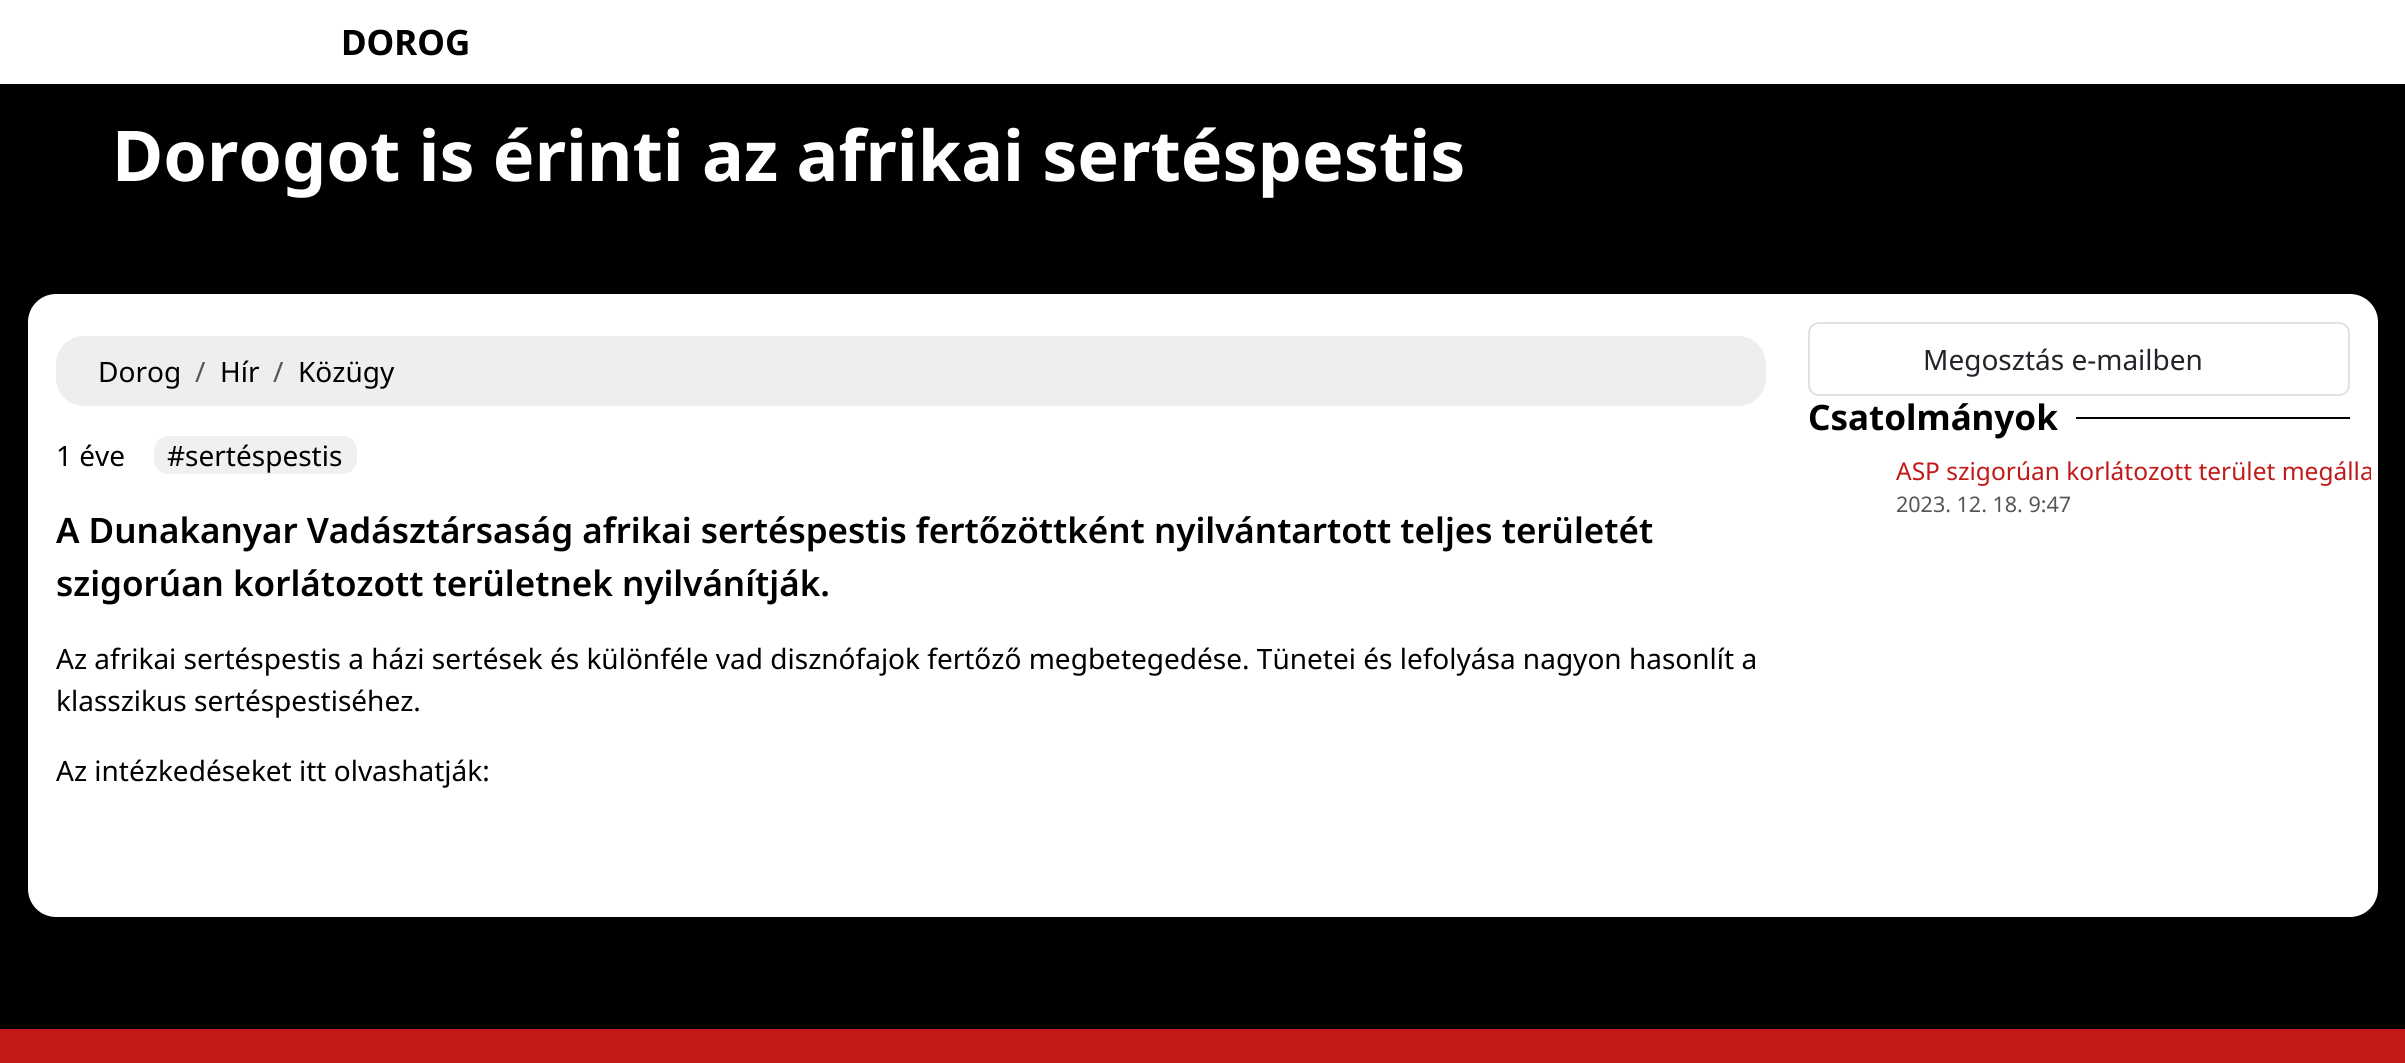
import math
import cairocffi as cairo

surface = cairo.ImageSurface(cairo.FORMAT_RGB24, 2405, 1063)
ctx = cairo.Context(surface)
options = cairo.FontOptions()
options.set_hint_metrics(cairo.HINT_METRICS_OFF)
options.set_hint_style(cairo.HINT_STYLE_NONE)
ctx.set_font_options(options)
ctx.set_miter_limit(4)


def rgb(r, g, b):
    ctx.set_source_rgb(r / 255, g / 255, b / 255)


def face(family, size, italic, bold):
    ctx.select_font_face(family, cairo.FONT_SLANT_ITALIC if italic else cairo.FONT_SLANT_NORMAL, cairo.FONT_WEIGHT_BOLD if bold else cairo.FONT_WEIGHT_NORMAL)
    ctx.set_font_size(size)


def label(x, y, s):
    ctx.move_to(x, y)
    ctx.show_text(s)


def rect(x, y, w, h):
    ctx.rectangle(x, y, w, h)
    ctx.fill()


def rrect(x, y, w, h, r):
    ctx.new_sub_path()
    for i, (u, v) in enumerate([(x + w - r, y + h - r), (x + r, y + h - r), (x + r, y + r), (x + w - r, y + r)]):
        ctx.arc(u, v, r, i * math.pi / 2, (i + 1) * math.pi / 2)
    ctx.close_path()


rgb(0, 0, 0)
ctx.paint()
rgb(255, 255, 255)
rect(0, 0, 2405, 84)
face('Noto Sans', 35, 0, 1)
rgb(0, 0, 0)
label(341, 55, 'DOROG')
face('Noto Sans', 70, 0, 1)
rgb(255, 255, 255)
label(112, 181, 'Dorogot is érinti az afrikai sertéspestis')
rrect(28, 294, 2350, 623, 28)
ctx.fill()
rgb(238, 238, 238)
rrect(56, 336, 1710, 70, 28)
ctx.fill()
face('Noto Sans', 28, 0, 0)
rgb(0, 0, 0)
label(98, 382, 'Dorog')
rgb(84, 87, 90)
label(195, 382, '/')
rgb(0, 0, 0)
label(220, 382, 'Hír')
rgb(84, 87, 90)
label(273, 382, '/')
rgb(0, 0, 0)
label(298, 382, 'Közügy')
label(56, 466, '1 éve')
rgb(240, 240, 240)
ctx.new_path()
ctx.move_to(168, 436)
ctx.line_to(186, 436)
ctx.line_to(186, 474)
ctx.line_to(168, 474)
ctx.curve_to(160.5, 474, 154, 467.5, 154, 460)
ctx.line_to(154, 450)
ctx.curve_to(154, 442.5, 160.5, 436, 168, 436)
ctx.close_path()
ctx.fill()
ctx.new_path()
ctx.move_to(186, 436)
ctx.line_to(343, 436)
ctx.curve_to(350.5, 436, 357, 442.5, 357, 450)
ctx.line_to(357, 460)
ctx.curve_to(357, 467.5, 350.5, 474, 343, 474)
ctx.line_to(186, 474)
ctx.close_path()
ctx.fill()
rgb(0, 0, 0)
label(167, 466, '#sertéspestis')
face('Noto Sans SemiBold', 35, 0, 0)
label(56, 543, 'A Dunakanyar Vadásztársaság afrikai sertéspestis fertőzöttként nyilvántartott teljes területét')
label(56, 596, 'szigorúan korlátozott területnek nyilvánítják.')
face('Noto Sans', 28, 0, 0)
label(56, 669, 'Az afrikai sertéspestis a házi sertések és különféle vad disznófajok fertőző megbetegedése. Tünetei és lefolyása nagyon hasonlít a')
label(56, 711, 'klasszikus sertéspestiséhez.')
label(56, 781, 'Az intézkedéseket itt olvashatják:')
rrect(1809, 323, 540, 72, 10)
rgb(222, 226, 230)
ctx.stroke()
rgb(33, 37, 41)
label(1923, 370, 'Megosztás e-mailben')
face('Noto Sans', 35, 0, 1)
rgb(0, 0, 0)
label(1808, 430, 'Csatolmányok')
rect(2076, 417, 274, 2)
ctx.save()
ctx.rectangle(1874, 452, 497, 70)
ctx.clip()
face('Noto Sans', 24.5, 0, 0)
rgb(194, 25, 25)
label(1896, 480, 'ASP szigorúan korlátozott terület megálla')
ctx.restore()
face('Noto Sans', 21.5, 0, 0)
rgb(84, 87, 90)
label(1896, 512, '2023. 12. 18. 9:47')
rgb(194, 25, 25)
rect(0, 1029, 2405, 34)
surface.write_to_png('render.png')
